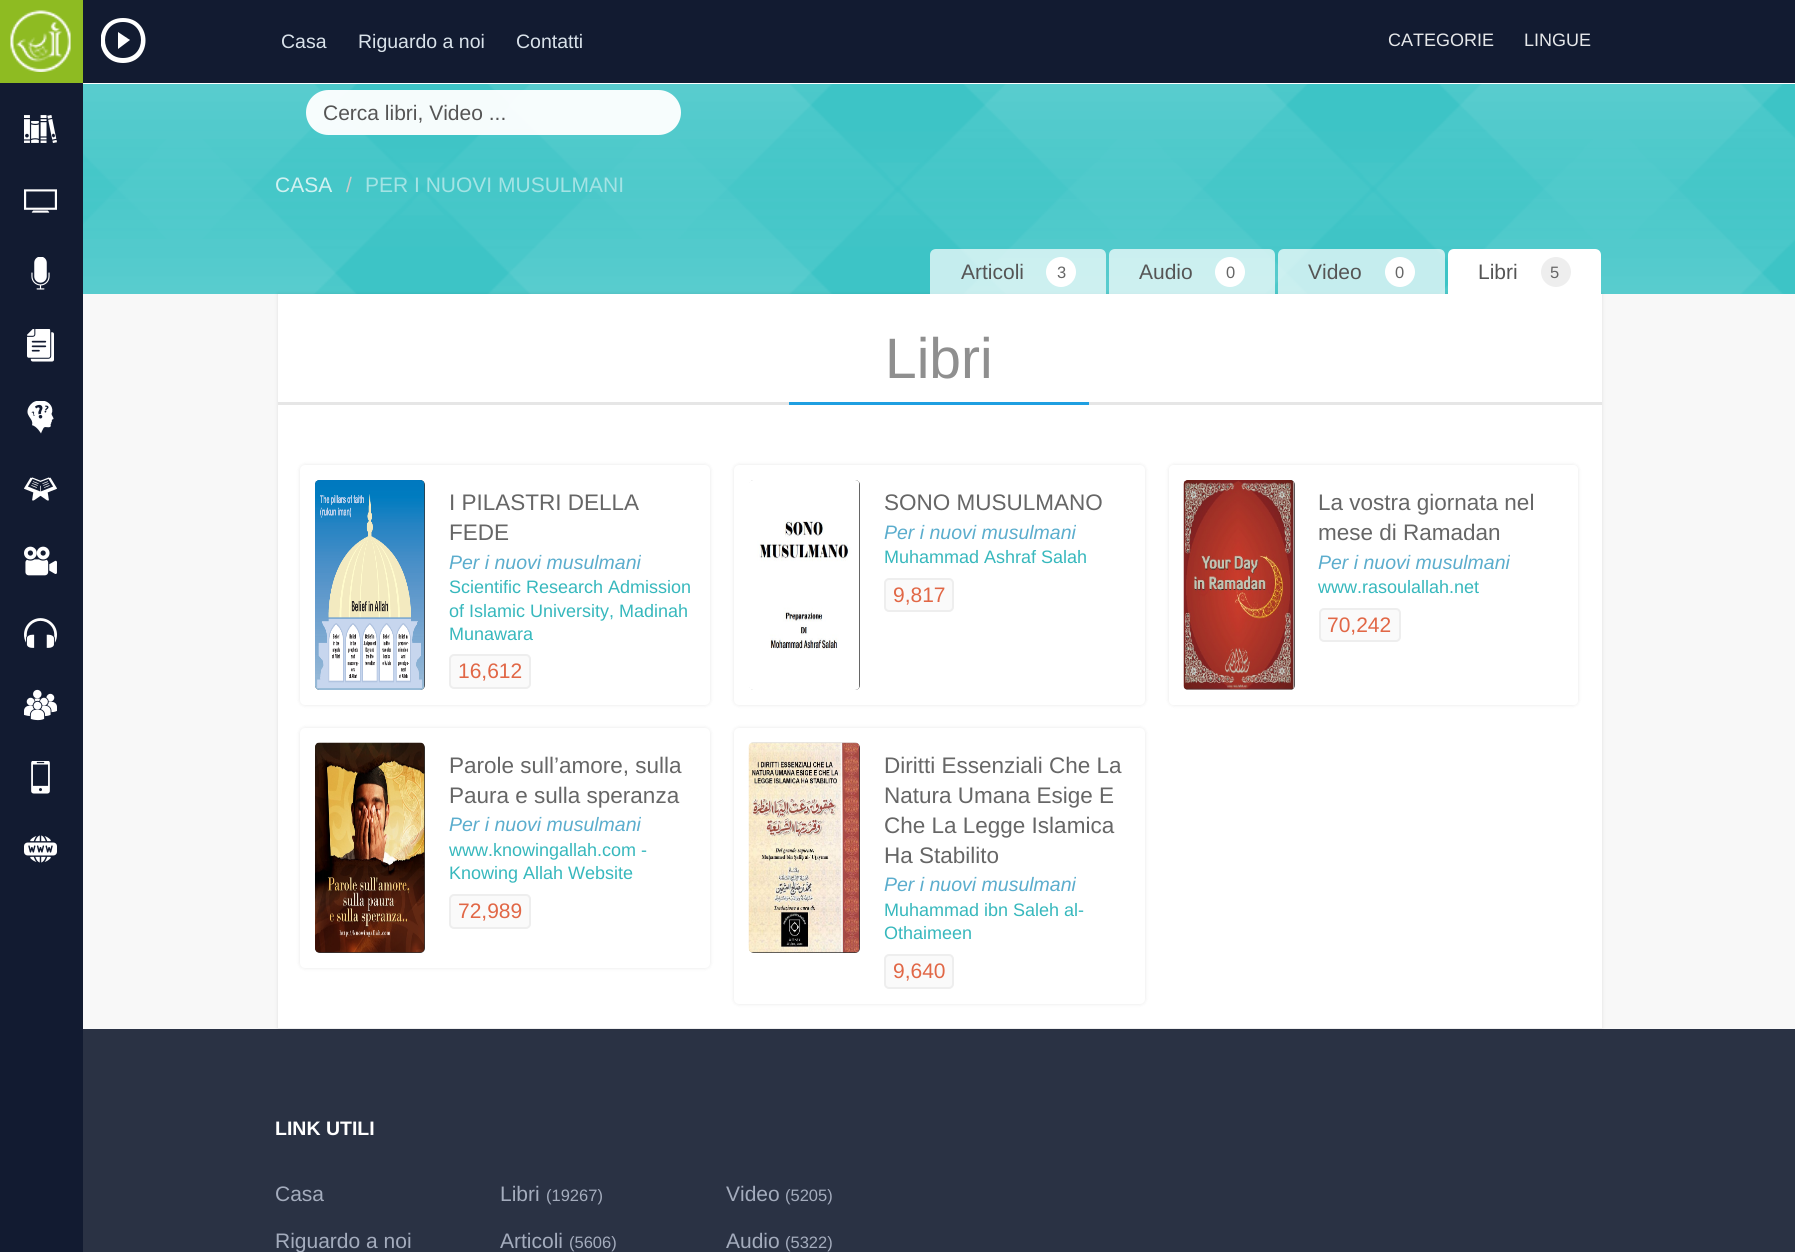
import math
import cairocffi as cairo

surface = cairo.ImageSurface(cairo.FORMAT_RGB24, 1795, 1252)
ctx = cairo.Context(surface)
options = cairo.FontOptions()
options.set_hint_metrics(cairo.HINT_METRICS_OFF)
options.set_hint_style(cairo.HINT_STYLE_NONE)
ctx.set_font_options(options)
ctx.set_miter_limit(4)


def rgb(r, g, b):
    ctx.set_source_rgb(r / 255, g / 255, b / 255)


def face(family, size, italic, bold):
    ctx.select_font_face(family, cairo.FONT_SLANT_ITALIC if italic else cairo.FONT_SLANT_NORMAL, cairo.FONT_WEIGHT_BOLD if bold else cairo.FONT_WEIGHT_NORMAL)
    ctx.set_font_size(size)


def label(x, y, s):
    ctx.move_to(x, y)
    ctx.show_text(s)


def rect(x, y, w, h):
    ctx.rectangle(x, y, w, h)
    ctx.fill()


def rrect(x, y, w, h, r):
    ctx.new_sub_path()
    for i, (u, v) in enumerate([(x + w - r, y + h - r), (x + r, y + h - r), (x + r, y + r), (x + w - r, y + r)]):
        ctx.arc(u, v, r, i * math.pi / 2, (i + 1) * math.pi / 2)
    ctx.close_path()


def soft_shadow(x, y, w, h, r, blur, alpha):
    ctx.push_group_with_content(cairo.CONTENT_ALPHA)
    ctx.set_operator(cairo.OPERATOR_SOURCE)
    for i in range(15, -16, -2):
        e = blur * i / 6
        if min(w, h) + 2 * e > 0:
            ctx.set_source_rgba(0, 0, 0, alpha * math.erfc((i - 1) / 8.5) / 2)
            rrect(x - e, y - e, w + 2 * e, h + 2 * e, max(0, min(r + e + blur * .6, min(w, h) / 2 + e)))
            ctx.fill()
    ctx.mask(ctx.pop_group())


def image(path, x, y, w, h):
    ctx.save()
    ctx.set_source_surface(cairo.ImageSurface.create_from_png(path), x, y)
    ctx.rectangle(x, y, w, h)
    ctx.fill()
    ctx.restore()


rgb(255, 255, 255)
ctx.paint()
rgb(18, 27, 49)
rect(0, 83, 83, 1169)
image('image0.png', 24, 115, 33, 28)
image('image1.png', 24, 189, 33, 24)
image('image2.png', 31, 257, 19, 33)
image('image3.png', 27, 329, 27, 33)
image('image4.png', 27, 401, 27, 33)
image('image5.png', 24, 477, 33, 24)
image('image6.png', 24, 546, 33, 30)
image('image7.png', 24, 618, 33, 30)
image('image8.png', 24, 689, 33, 32)
image('image9.png', 31, 761, 19, 33)
image('image10.png', 24, 835, 33, 28)
rect(83, 0, 1712, 83)
rgb(142, 187, 34)
rect(0, 0, 83, 83)
image('image11.png', 10, 10, 61, 62)
ctx.save()
ctx.rectangle(101, 18, 45, 45)
ctx.clip()
rgb(255, 255, 255)
ctx.set_fill_rule(cairo.FILL_RULE_EVEN_ODD)
ctx.new_path()
ctx.move_to(123, 18)
ctx.curve_to(93, 18, 93, 63, 123, 63)
ctx.curve_to(153, 63, 153, 18, 123, 18)
ctx.close_path()
ctx.move_to(123, 58)
ctx.curve_to(99, 58, 99, 22, 123, 22)
ctx.curve_to(147, 22, 147, 58, 123, 58)
ctx.close_path()
ctx.move_to(130, 40)
ctx.line_to(118, 49)
ctx.line_to(118, 32)
ctx.close_path()
ctx.fill()
ctx.restore()
face('Liberation Sans', 19.5, 0, 0)
rgb(217, 226, 234)
label(281, 48, 'Casa')
label(358, 48, 'Riguardo a noi')
label(516, 48, 'Contatti')
rgb(61, 196, 198)
rect(83, 84, 1712, 210)
image('image12.png', 83, 84, 1712, 210)
ctx.set_source_rgba(1, 1, 1, 0.95)
rrect(306, 90, 375, 45, 22.5)
ctx.fill()
face('Liberation Sans', 21, 0, 0)
rgb(85, 85, 85)
label(323, 120, 'Cerca libri, Video ...')
face('Liberation Sans', 18, 0, 0)
rgb(230, 232, 234)
label(1388, 46, 'CATEGORIE')
label(1524, 46, 'LINGUE')
face('Liberation Sans', 21, 0, 0)
rgb(209, 241, 241)
label(275, 192, 'CASA')
rgb(204, 204, 204)
label(346, 192, '/')
rgb(163, 227, 228)
label(365, 192, 'PER I NUOVI MUSULMANI')
rgb(248, 248, 248)
rect(83, 294, 1712, 735)
rgb(42, 50, 68)
rect(83, 1029, 1712, 223)
rgb(0, 0, 0)
soft_shadow(278, 294, 1324, 734, 0, 2, 0.1)
ctx.set_source_rgba(1, 1, 1, 0.7)
ctx.new_path()
ctx.move_to(936, 249)
ctx.line_to(1100, 249)
ctx.curve_to(1103.5, 249, 1106, 251.5, 1106, 255)
ctx.line_to(1106, 294)
ctx.line_to(930, 294)
ctx.line_to(930, 255)
ctx.curve_to(930, 251.5, 932.5, 249, 936, 249)
ctx.close_path()
ctx.fill()
rgb(85, 85, 85)
label(961, 279, 'Articoli')
rgb(255, 255, 255)
ctx.new_path()
ctx.arc(1061, 272, 15, 0, 2 * math.pi)
ctx.fill()
face('Liberation Sans', 16.5, 0, 0)
rgb(102, 102, 102)
label(1057, 278, '3')
ctx.set_source_rgba(1, 1, 1, 0.7)
ctx.new_path()
ctx.move_to(1115, 249)
ctx.line_to(1269, 249)
ctx.curve_to(1272.5, 249, 1275, 251.5, 1275, 255)
ctx.line_to(1275, 294)
ctx.line_to(1109, 294)
ctx.line_to(1109, 255)
ctx.curve_to(1109, 251.5, 1111.5, 249, 1115, 249)
ctx.close_path()
ctx.fill()
face('Liberation Sans', 21, 0, 0)
rgb(85, 85, 85)
label(1139, 279, 'Audio')
rgb(255, 255, 255)
ctx.new_path()
ctx.arc(1230, 272, 15, 0, 2 * math.pi)
ctx.fill()
face('Liberation Sans', 16.5, 0, 0)
rgb(102, 102, 102)
label(1226, 278, '0')
ctx.set_source_rgba(1, 1, 1, 0.7)
ctx.new_path()
ctx.move_to(1284, 249)
ctx.line_to(1439, 249)
ctx.curve_to(1442.5, 249, 1445, 251.5, 1445, 255)
ctx.line_to(1445, 294)
ctx.line_to(1278, 294)
ctx.line_to(1278, 255)
ctx.curve_to(1278, 251.5, 1280.5, 249, 1284, 249)
ctx.close_path()
ctx.fill()
face('Liberation Sans', 21, 0, 0)
rgb(85, 85, 85)
label(1308, 279, 'Video')
rgb(255, 255, 255)
ctx.new_path()
ctx.arc(1400, 272, 15, 0, 2 * math.pi)
ctx.fill()
face('Liberation Sans', 16.5, 0, 0)
rgb(102, 102, 102)
label(1395, 278, '0')
rgb(255, 255, 255)
ctx.new_path()
ctx.move_to(1454, 249)
ctx.line_to(1595, 249)
ctx.curve_to(1598.5, 249, 1601, 251.5, 1601, 255)
ctx.line_to(1601, 294)
ctx.line_to(1448, 294)
ctx.line_to(1448, 255)
ctx.curve_to(1448, 251.5, 1450.5, 249, 1454, 249)
ctx.close_path()
ctx.fill()
face('Liberation Sans', 21, 0, 0)
rgb(85, 85, 85)
label(1478, 279, 'Libri')
rgb(238, 238, 238)
ctx.new_path()
ctx.arc(1556, 272, 15, 0, 2 * math.pi)
ctx.fill()
face('Liberation Sans', 16.5, 0, 0)
rgb(102, 102, 102)
label(1550, 278, '5')
rgb(255, 255, 255)
rect(278, 294, 1324, 734)
rgb(230, 230, 230)
rect(278, 402, 1324, 3)
face('Liberation Sans', 57, 0, 0)
rgb(143, 143, 143)
label(885, 378, 'Libri')
rgb(31, 159, 225)
rect(789, 402, 300, 3)
rgb(0, 0, 0)
soft_shadow(300, 465, 410, 240, 5, 2, 0.1)
rgb(255, 255, 255)
rrect(300, 465, 410, 240, 5)
ctx.fill()
rgb(51, 51, 51)
rrect(315, 480, 110, 210, 5)
ctx.fill()
image('image13.png', 315, 480, 110, 210)
face('Liberation Sans', 22.5, 0, 0)
rgb(102, 102, 102)
label(449, 510, 'I PILASTRI DELLA')
label(449, 540, 'FEDE')
face('Liberation Sans', 19.5, 1, 0)
rgb(91, 173, 205)
label(449, 569, 'Per i nuovi musulmani')
face('Liberation Sans', 18, 0, 0)
rgb(55, 184, 189)
label(449, 593, 'Scientific Research Admission')
label(449, 617, 'of Islamic University, Madinah')
label(449, 640, 'Munawara')
rgb(250, 250, 250)
rrect(450, 655, 80, 33, 4)
ctx.fill_preserve()
rgb(238, 238, 238)
ctx.stroke()
face('Liberation Sans', 21, 0, 0)
rgb(225, 103, 70)
label(458, 678, '16,612')
rgb(0, 0, 0)
soft_shadow(734, 465, 411, 240, 5, 2, 0.1)
rgb(255, 255, 255)
rrect(734, 465, 411, 240, 5)
ctx.fill()
rgb(51, 51, 51)
rrect(749, 480, 111, 210, 5)
ctx.fill()
image('image14.png', 749, 480, 111, 210)
face('Liberation Sans', 22.5, 0, 0)
rgb(102, 102, 102)
label(884, 510, 'SONO MUSULMANO')
face('Liberation Sans', 19.5, 1, 0)
rgb(91, 173, 205)
label(884, 539, 'Per i nuovi musulmani')
face('Liberation Sans', 18, 0, 0)
rgb(55, 184, 189)
label(884, 563, 'Muhammad Ashraf Salah')
rgb(250, 250, 250)
rrect(885, 579, 68, 32, 4)
ctx.fill_preserve()
rgb(238, 238, 238)
ctx.stroke()
face('Liberation Sans', 21, 0, 0)
rgb(225, 103, 70)
label(893, 602, '9,817')
ctx.save()
ctx.set_fill_rule(cairo.FILL_RULE_EVEN_ODD)
ctx.new_path()
ctx.move_to(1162, 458)
ctx.line_to(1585, 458)
ctx.line_to(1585, 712)
ctx.line_to(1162, 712)
ctx.close_path()
ctx.move_to(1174, 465)
ctx.line_to(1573, 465)
ctx.curve_to(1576, 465, 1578, 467, 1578, 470)
ctx.line_to(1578, 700)
ctx.curve_to(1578, 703, 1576, 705, 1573, 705)
ctx.line_to(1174, 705)
ctx.curve_to(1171, 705, 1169, 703, 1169, 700)
ctx.line_to(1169, 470)
ctx.curve_to(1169, 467, 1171, 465, 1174, 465)
ctx.close_path()
ctx.clip()
rgb(0, 0, 0)
soft_shadow(1169, 465, 409, 240, 5, 2, 0.1)
ctx.restore()
rgb(51, 51, 51)
rrect(1184, 480, 111, 210, 5)
ctx.fill()
image('image15.png', 1183, 480, 112, 210)
face('Liberation Sans', 22.5, 0, 0)
rgb(102, 102, 102)
label(1318, 510, 'La vostra giornata nel')
label(1318, 540, 'mese di Ramadan')
face('Liberation Sans', 19.5, 1, 0)
rgb(91, 173, 205)
label(1318, 569, 'Per i nuovi musulmani')
face('Liberation Sans', 18, 0, 0)
rgb(55, 184, 189)
label(1318, 593, 'www.rasoulallah.net')
rgb(250, 250, 250)
rrect(1320, 609, 80, 32, 4)
ctx.fill_preserve()
rgb(238, 238, 238)
ctx.stroke()
face('Liberation Sans', 21, 0, 0)
rgb(225, 103, 70)
label(1327, 632, '70,242')
rgb(0, 0, 0)
soft_shadow(300, 728, 410, 240, 5, 2, 0.1)
rgb(255, 255, 255)
rrect(300, 728, 410, 240, 5)
ctx.fill()
rgb(51, 51, 51)
rrect(315, 743, 110, 210, 5)
ctx.fill()
image('image16.png', 315, 742, 110, 211)
face('Liberation Sans', 22.5, 0, 0)
rgb(102, 102, 102)
label(449, 773, 'Parole sull’amore, sulla')
label(449, 803, 'Paura e sulla speranza')
face('Liberation Sans', 19.5, 1, 0)
rgb(91, 173, 205)
label(449, 831, 'Per i nuovi musulmani')
face('Liberation Sans', 18, 0, 0)
rgb(55, 184, 189)
label(449, 856, 'www.knowingallah.com -')
label(449, 879, 'Knowing Allah Website')
rgb(250, 250, 250)
rrect(450, 895, 80, 33, 4)
ctx.fill_preserve()
rgb(238, 238, 238)
ctx.stroke()
face('Liberation Sans', 21, 0, 0)
rgb(225, 103, 70)
label(458, 918, '72,989')
rgb(0, 0, 0)
soft_shadow(734, 728, 411, 276, 5, 2, 0.1)
rgb(255, 255, 255)
rrect(734, 728, 411, 276, 5)
ctx.fill()
rgb(51, 51, 51)
rrect(749, 743, 111, 210, 5)
ctx.fill()
image('image17.png', 748, 742, 112, 211)
face('Liberation Sans', 22.5, 0, 0)
rgb(102, 102, 102)
label(884, 773, 'Diritti Essenziali Che La')
label(884, 803, 'Natura Umana Esige E')
label(884, 833, 'Che La Legge Islamica')
label(884, 863, 'Ha Stabilito')
face('Liberation Sans', 19.5, 1, 0)
rgb(91, 173, 205)
label(884, 891, 'Per i nuovi musulmani')
face('Liberation Sans', 18, 0, 0)
rgb(55, 184, 189)
label(884, 916, 'Muhammad ibn Saleh al-')
label(884, 939, 'Othaimeen')
rgb(250, 250, 250)
rrect(885, 955, 68, 33, 4)
ctx.fill_preserve()
rgb(238, 238, 238)
ctx.stroke()
face('Liberation Sans', 21, 0, 0)
rgb(225, 103, 70)
label(893, 978, '9,640')
face('Liberation Sans', 19.5, 0, 1)
rgb(255, 255, 255)
label(275, 1135, 'LINK UTILI')
face('Liberation Sans', 21, 0, 0)
rgb(164, 172, 189)
label(275, 1201, 'Casa')
label(275, 1248, 'Riguardo a noi')
label(500, 1201, 'Libri')
face('Liberation Sans', 16.5, 0, 0)
label(546, 1201, '(19267)')
face('Liberation Sans', 21, 0, 0)
label(500, 1248, 'Articoli')
face('Liberation Sans', 16.5, 0, 0)
label(569, 1248, '(5606)')
face('Liberation Sans', 21, 0, 0)
label(726, 1201, 'Video')
face('Liberation Sans', 16.5, 0, 0)
label(785, 1201, '(5205)')
face('Liberation Sans', 21, 0, 0)
label(726, 1248, 'Audio')
face('Liberation Sans', 16.5, 0, 0)
label(785, 1248, '(5322)')
surface.write_to_png('render.png')
